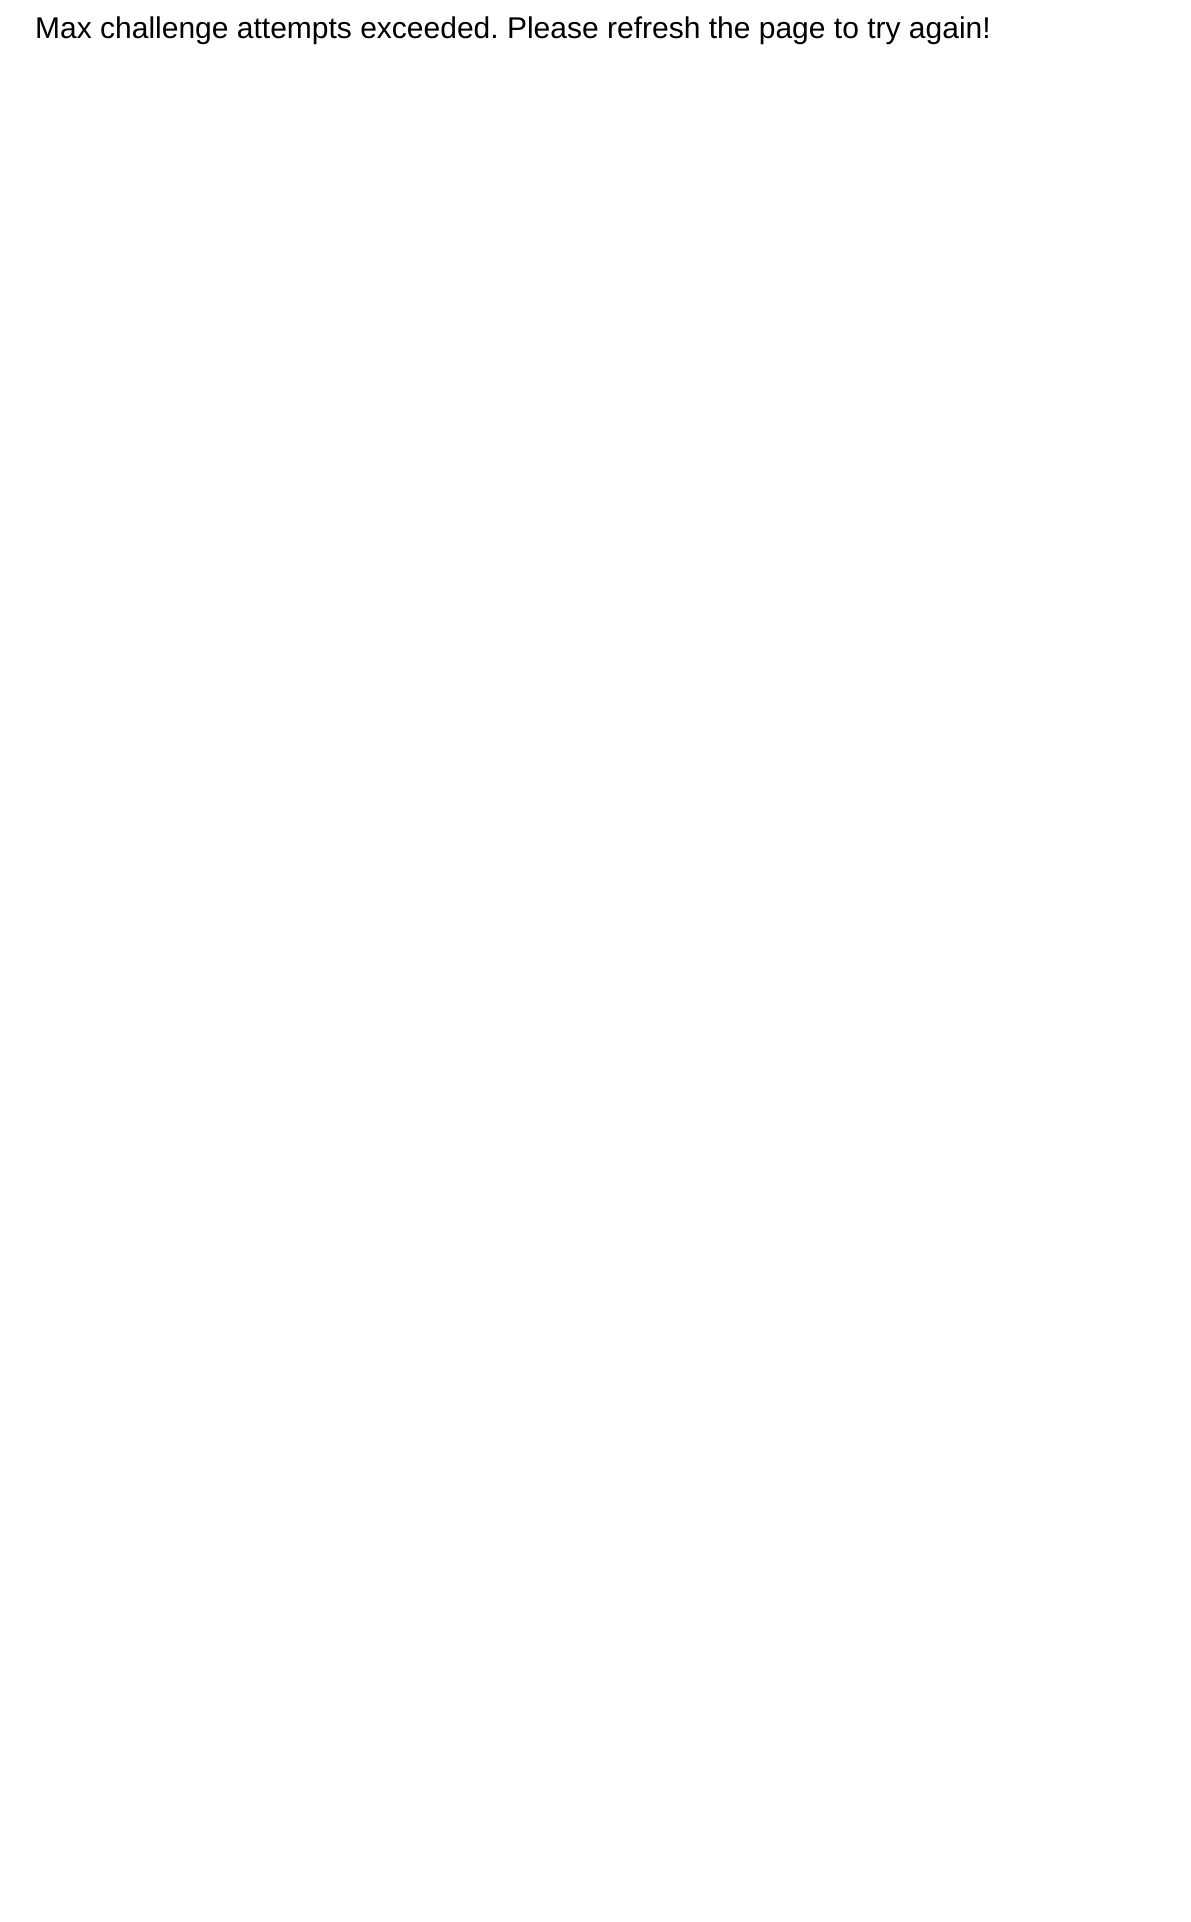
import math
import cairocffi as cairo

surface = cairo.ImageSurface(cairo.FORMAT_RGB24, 1191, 1922)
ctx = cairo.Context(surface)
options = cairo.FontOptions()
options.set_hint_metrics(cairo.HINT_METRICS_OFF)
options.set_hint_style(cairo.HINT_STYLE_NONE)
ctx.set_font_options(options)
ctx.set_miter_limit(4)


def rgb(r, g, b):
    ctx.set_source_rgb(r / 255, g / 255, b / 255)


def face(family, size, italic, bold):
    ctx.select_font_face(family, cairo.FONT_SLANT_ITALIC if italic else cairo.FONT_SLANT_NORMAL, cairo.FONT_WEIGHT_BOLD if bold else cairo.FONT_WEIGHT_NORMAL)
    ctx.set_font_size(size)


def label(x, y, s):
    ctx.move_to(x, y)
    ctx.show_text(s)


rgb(255, 255, 255)
ctx.paint()
face('Liberation Sans', 30, 0, 0)
rgb(0, 0, 0)
label(35, 38, 'Max challenge attempts exceeded. Please refresh the page to try again!')
surface.write_to_png('render.png')
